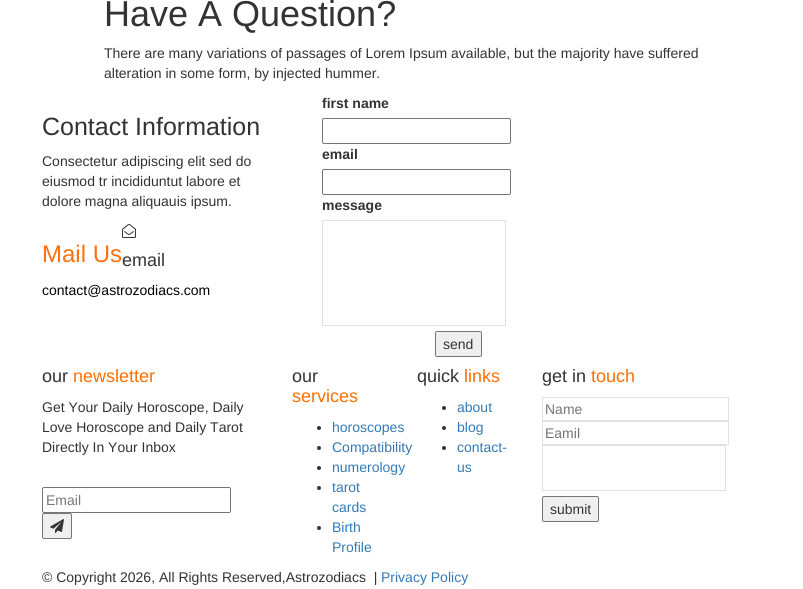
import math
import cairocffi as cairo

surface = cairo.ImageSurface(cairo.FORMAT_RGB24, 803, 589)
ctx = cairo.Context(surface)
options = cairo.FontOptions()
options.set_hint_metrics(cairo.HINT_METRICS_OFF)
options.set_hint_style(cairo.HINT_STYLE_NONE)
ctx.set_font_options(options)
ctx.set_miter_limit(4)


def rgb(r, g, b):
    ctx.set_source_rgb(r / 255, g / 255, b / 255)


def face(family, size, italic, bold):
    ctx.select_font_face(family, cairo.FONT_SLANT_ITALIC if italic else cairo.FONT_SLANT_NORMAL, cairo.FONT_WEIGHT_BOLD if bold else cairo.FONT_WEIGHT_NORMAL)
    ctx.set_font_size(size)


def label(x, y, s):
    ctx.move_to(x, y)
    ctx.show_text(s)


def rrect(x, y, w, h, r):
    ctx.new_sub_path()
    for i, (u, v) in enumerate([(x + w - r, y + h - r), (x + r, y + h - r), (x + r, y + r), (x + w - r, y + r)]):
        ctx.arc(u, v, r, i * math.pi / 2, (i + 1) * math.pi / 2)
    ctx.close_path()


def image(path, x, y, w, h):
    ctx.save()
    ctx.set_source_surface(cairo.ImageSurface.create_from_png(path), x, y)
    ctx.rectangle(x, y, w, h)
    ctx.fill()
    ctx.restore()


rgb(255, 255, 255)
ctx.paint()
face('Liberation Sans', 36, 0, 0)
rgb(51, 51, 51)
label(104, 26, 'Have A Question?')
face('Liberation Sans', 14, 0, 0)
label(104, 58, 'There are many variations of passages of Lorem Ipsum available, but the majority have suffered')
label(104, 78, 'alteration in some form, by injected hummer.')
face('Liberation Sans', 25, 0, 0)
label(42, 135, 'Contact Information')
face('Liberation Sans', 14, 0, 0)
label(42, 166, 'Consectetur adipiscing elit sed do')
label(42, 186, 'eiusmod tr incididuntut labore et')
label(42, 206, 'dolore magna aliquauis ipsum.')
face('Liberation Sans', 24, 0, 0)
rgb(255, 112, 16)
label(42, 262, 'Mail Us')
image('image0.png', 122, 224, 14, 14)
face('Liberation Sans', 18, 0, 0)
rgb(51, 51, 51)
label(122, 266, 'email')
face('Liberation Sans', 14, 0, 0)
rgb(0, 0, 0)
label(42, 295, 'contact@astrozodiacs.com')
face('Liberation Sans', 14, 0, 1)
rgb(51, 51, 51)
label(322, 108, 'first name')
rrect(322.5, 118.5, 188, 25, 1.5)
rgb(118, 118, 118)
ctx.set_line_width(1)
ctx.stroke()
rgb(51, 51, 51)
label(322, 159, 'email')
rrect(322.5, 169.5, 188, 25, 1.5)
rgb(118, 118, 118)
ctx.stroke()
rgb(51, 51, 51)
label(322, 210, 'message')
ctx.rectangle(322.5, 220.5, 183, 105)
rgb(225, 225, 225)
ctx.stroke()
rgb(239, 239, 239)
rrect(435.5, 331.5, 46, 25, 1.5)
ctx.fill_preserve()
rgb(118, 118, 118)
ctx.stroke()
face('Liberation Sans', 14, 0, 0)
rgb(51, 51, 51)
label(443, 349, 'send')
face('Liberation Sans', 18, 0, 0)
label(42, 382, 'our')
rgb(255, 111, 0)
label(73, 382, 'newsletter')
face('Liberation Sans', 14, 0, 0)
rgb(51, 51, 51)
label(42, 412, 'Get Your Daily Horoscope, Daily')
label(42, 432, 'Love Horoscope and Daily Tarot')
label(42, 452, 'Directly In Your Inbox')
rrect(42.5, 487.5, 188, 25, 1.5)
rgb(118, 118, 118)
ctx.stroke()
rgb(117, 117, 117)
label(46, 505, 'Email')
rgb(239, 239, 239)
rrect(42.5, 513.5, 29, 25, 1.5)
ctx.fill_preserve()
rgb(118, 118, 118)
ctx.stroke()
image('image1.png', 50, 519, 14, 14)
face('Liberation Sans', 18, 0, 0)
rgb(51, 51, 51)
label(292, 382, 'our')
rgb(255, 111, 0)
label(292, 402, 'services')
rgb(51, 51, 51)
ctx.new_path()
ctx.arc(319, 428, 2, 0, 2 * math.pi)
ctx.fill()
face('Liberation Sans', 14, 0, 0)
rgb(51, 122, 183)
label(332, 432, 'horoscopes')
rgb(51, 51, 51)
ctx.new_path()
ctx.arc(319, 448, 2, 0, 2 * math.pi)
ctx.fill()
rgb(51, 122, 183)
label(332, 452, 'Compatibility')
rgb(51, 51, 51)
ctx.new_path()
ctx.arc(319, 468, 2, 0, 2 * math.pi)
ctx.fill()
rgb(51, 122, 183)
label(332, 472, 'numerology')
rgb(51, 51, 51)
ctx.new_path()
ctx.arc(319, 488, 2, 0, 2 * math.pi)
ctx.fill()
rgb(51, 122, 183)
label(332, 492, 'tarot')
label(332, 512, 'cards')
rgb(51, 51, 51)
ctx.new_path()
ctx.arc(319, 528, 2, 0, 2 * math.pi)
ctx.fill()
rgb(51, 122, 183)
label(332, 532, 'Birth')
label(332, 552, 'Profile')
face('Liberation Sans', 18, 0, 0)
rgb(51, 51, 51)
label(417, 382, 'quick')
rgb(255, 111, 0)
label(464, 382, 'links')
rgb(51, 51, 51)
ctx.new_path()
ctx.arc(444, 408, 2, 0, 2 * math.pi)
ctx.fill()
face('Liberation Sans', 14, 0, 0)
rgb(51, 122, 183)
label(457, 412, 'about')
rgb(51, 51, 51)
ctx.new_path()
ctx.arc(444, 428, 2, 0, 2 * math.pi)
ctx.fill()
rgb(51, 122, 183)
label(457, 432, 'blog')
rgb(51, 51, 51)
ctx.new_path()
ctx.arc(444, 448, 2, 0, 2 * math.pi)
ctx.fill()
rgb(51, 122, 183)
label(457, 452, 'contact-')
label(457, 472, 'us')
face('Liberation Sans', 18, 0, 0)
rgb(51, 51, 51)
label(542, 382, 'get in')
rgb(255, 111, 0)
label(591, 382, 'touch')
ctx.rectangle(542.5, 397.5, 186, 23)
rgb(225, 225, 225)
ctx.stroke()
face('Liberation Sans', 14, 0, 0)
rgb(117, 117, 117)
label(545, 414, 'Name')
ctx.rectangle(542.5, 421.5, 186, 23)
rgb(225, 225, 225)
ctx.stroke()
rgb(117, 117, 117)
label(545, 438, 'Eamil')
ctx.rectangle(542.5, 445.5, 183, 45)
rgb(225, 225, 225)
ctx.stroke()
rgb(239, 239, 239)
rrect(542.5, 496.5, 56, 25, 1.5)
ctx.fill_preserve()
rgb(118, 118, 118)
ctx.stroke()
rgb(51, 51, 51)
label(550, 514, 'submit')
label(42, 582, '© Copyright 2026, All Rights Reserved,Astrozodiacs  |')
rgb(51, 122, 183)
label(381, 582, 'Privacy Policy')
surface.write_to_png('render.png')
